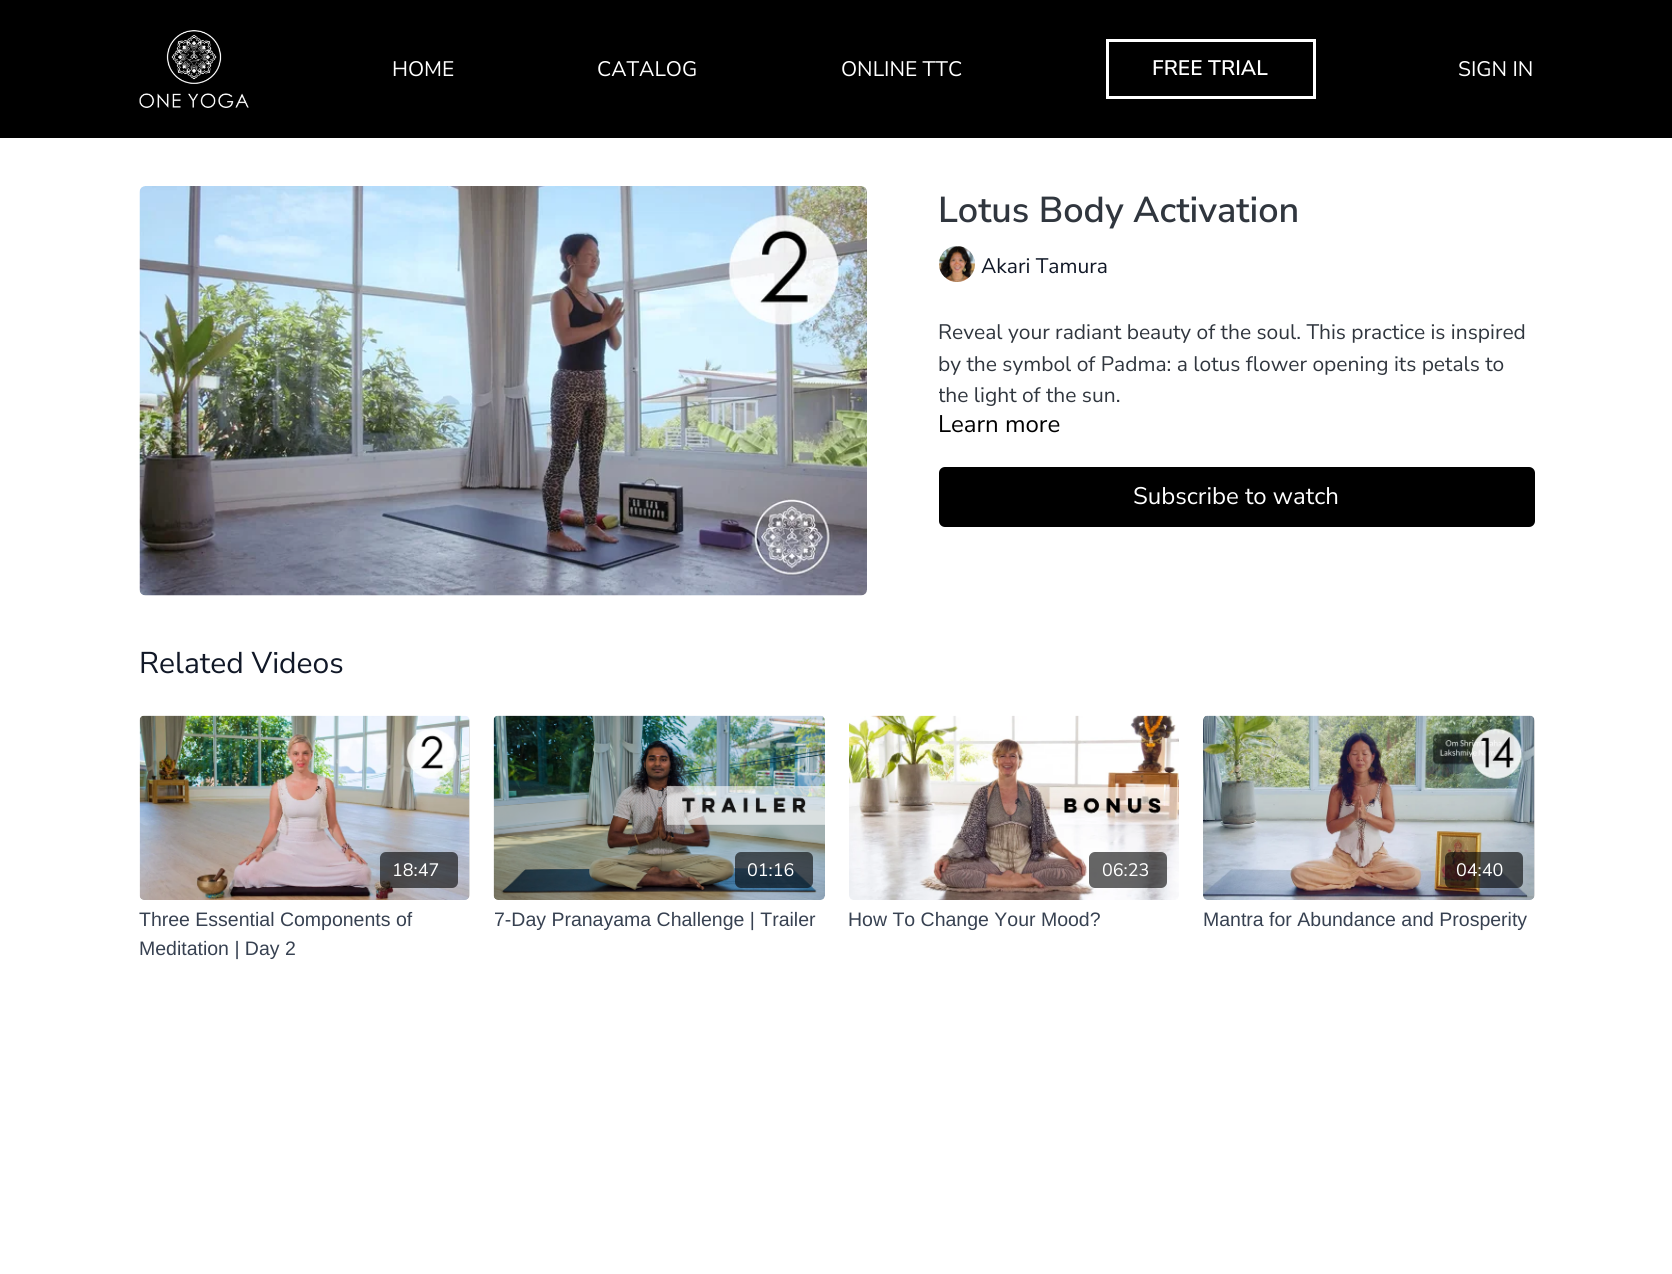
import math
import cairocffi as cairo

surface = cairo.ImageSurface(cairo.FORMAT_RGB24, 1672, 1274)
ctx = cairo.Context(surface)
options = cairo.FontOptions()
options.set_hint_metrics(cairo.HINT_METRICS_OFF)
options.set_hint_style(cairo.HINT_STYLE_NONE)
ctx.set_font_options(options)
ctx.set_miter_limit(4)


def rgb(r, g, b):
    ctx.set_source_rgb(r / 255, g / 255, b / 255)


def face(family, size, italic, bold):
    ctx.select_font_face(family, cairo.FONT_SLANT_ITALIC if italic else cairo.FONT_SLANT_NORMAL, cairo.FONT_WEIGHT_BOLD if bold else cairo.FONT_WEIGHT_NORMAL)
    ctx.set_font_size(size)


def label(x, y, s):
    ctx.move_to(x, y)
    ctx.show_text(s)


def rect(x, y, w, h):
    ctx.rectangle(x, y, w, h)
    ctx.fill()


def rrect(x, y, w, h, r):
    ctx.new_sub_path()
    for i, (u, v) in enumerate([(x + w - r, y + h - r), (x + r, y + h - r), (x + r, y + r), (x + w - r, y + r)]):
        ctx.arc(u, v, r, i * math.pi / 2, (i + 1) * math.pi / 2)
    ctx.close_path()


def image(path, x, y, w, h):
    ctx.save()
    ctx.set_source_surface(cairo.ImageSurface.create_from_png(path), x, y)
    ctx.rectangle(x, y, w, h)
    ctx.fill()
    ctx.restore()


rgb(255, 255, 255)
ctx.paint()
rgb(0, 0, 0)
rect(0, 0, 1672, 138)
image('image0.png', 139, 30, 110, 78)
face('Nunito Sans', 21, 0, 0)
rgb(255, 255, 255)
label(392, 76, 'HOME')
label(597, 76, 'CATALOG')
label(841, 76, 'ONLINE TTC')
ctx.rectangle(1107.5, 40.5, 207, 57)
ctx.set_line_width(3)
ctx.stroke()
face('Nunito Sans SemiBold', 21, 0, 0)
label(1152, 75, 'FREE TRIAL')
face('Nunito Sans', 21, 0, 0)
label(1458, 76, 'SIGN IN')
image('image1.png', 139, 186, 728, 410)
face('Nunito Sans SemiBold', 36, 0, 0)
rgb(48, 54, 62)
label(938, 222, 'Lotus Body Activation')
image('image2.png', 939, 246, 36, 36)
face('Nunito Sans', 21, 0, 0)
rgb(17, 24, 39)
label(981, 273, 'Akari Tamura')
rgb(48, 54, 62)
label(938, 339, 'Reveal your radiant beauty of the soul. This practice is inspired')
label(938, 371, 'by the symbol of Padma: a lotus flower opening its petals to')
ctx.save()
ctx.rectangle(939, 317, 596, 90)
ctx.clip()
label(938, 402, 'the light of the sun.')
ctx.restore()
face('Nunito Sans', 24, 0, 0)
rgb(0, 0, 0)
label(938, 432, 'Learn more')
rrect(939, 467, 596, 60, 6)
ctx.fill()
rgb(255, 255, 255)
label(1133, 504, 'Subscribe to watch')
face('Nunito Sans', 30, 0, 0)
rgb(17, 24, 39)
label(139, 673, 'Related Videos')
gradient = cairo.LinearGradient(140, 808, 470, 808)
gradient.add_color_stop_rgba(0.08, 0.871, 0.871, 0.871, 1)
gradient.add_color_stop_rgba(0.18, 0.878, 0.878, 0.878, 1)
gradient.add_color_stop_rgba(0.33, 0.89, 0.89, 0.89, 1)
ctx.set_source(gradient)
rrect(140, 716, 330, 184, 6)
ctx.fill()
image('image3.png', 139, 715, 331, 185)
ctx.set_source_rgba(0, 0, 0, 0.6)
rrect(380, 852, 78, 36, 6)
ctx.fill()
face('Nunito Sans', 18, 0, 0)
rgb(255, 255, 255)
label(392, 876, '18:47')
face('Liberation Sans', 19.5, 0, 0)
rgb(55, 65, 81)
label(139, 926, 'Three Essential Components of')
label(139, 955, 'Meditation | Day 2')
image('image4.png', 493, 715, 332, 185)
ctx.set_source_rgba(0, 0, 0, 0.6)
rrect(735, 852, 78, 36, 6)
ctx.fill()
face('Nunito Sans', 18, 0, 0)
rgb(255, 255, 255)
label(747, 876, '01:16')
face('Liberation Sans', 19.5, 0, 0)
rgb(55, 65, 81)
label(494, 926, '7-Day Pranayama Challenge | Trailer')
image('image5.png', 849, 715, 330, 185)
ctx.set_source_rgba(0, 0, 0, 0.6)
rrect(1089, 852, 78, 36, 6)
ctx.fill()
face('Nunito Sans', 18, 0, 0)
rgb(255, 255, 255)
label(1102, 876, '06:23')
face('Liberation Sans', 19.5, 0, 0)
rgb(55, 65, 81)
label(848, 926, 'How To Change Your Mood?')
gradient = cairo.LinearGradient(1203, 808, 1535, 808)
gradient.add_color_stop_rgba(0.08, 0.871, 0.871, 0.871, 1)
gradient.add_color_stop_rgba(0.18, 0.878, 0.878, 0.878, 1)
gradient.add_color_stop_rgba(0.33, 0.89, 0.89, 0.89, 1)
ctx.set_source(gradient)
rrect(1203, 716, 332, 184, 6)
ctx.fill()
image('image6.png', 1203, 715, 332, 185)
ctx.set_source_rgba(0, 0, 0, 0.6)
rrect(1445, 852, 78, 36, 6)
ctx.fill()
face('Nunito Sans', 18, 0, 0)
rgb(255, 255, 255)
label(1456, 876, '04:40')
face('Liberation Sans', 19.5, 0, 0)
rgb(55, 65, 81)
label(1203, 926, 'Mantra for Abundance and Prosperity')
surface.write_to_png('render.png')
